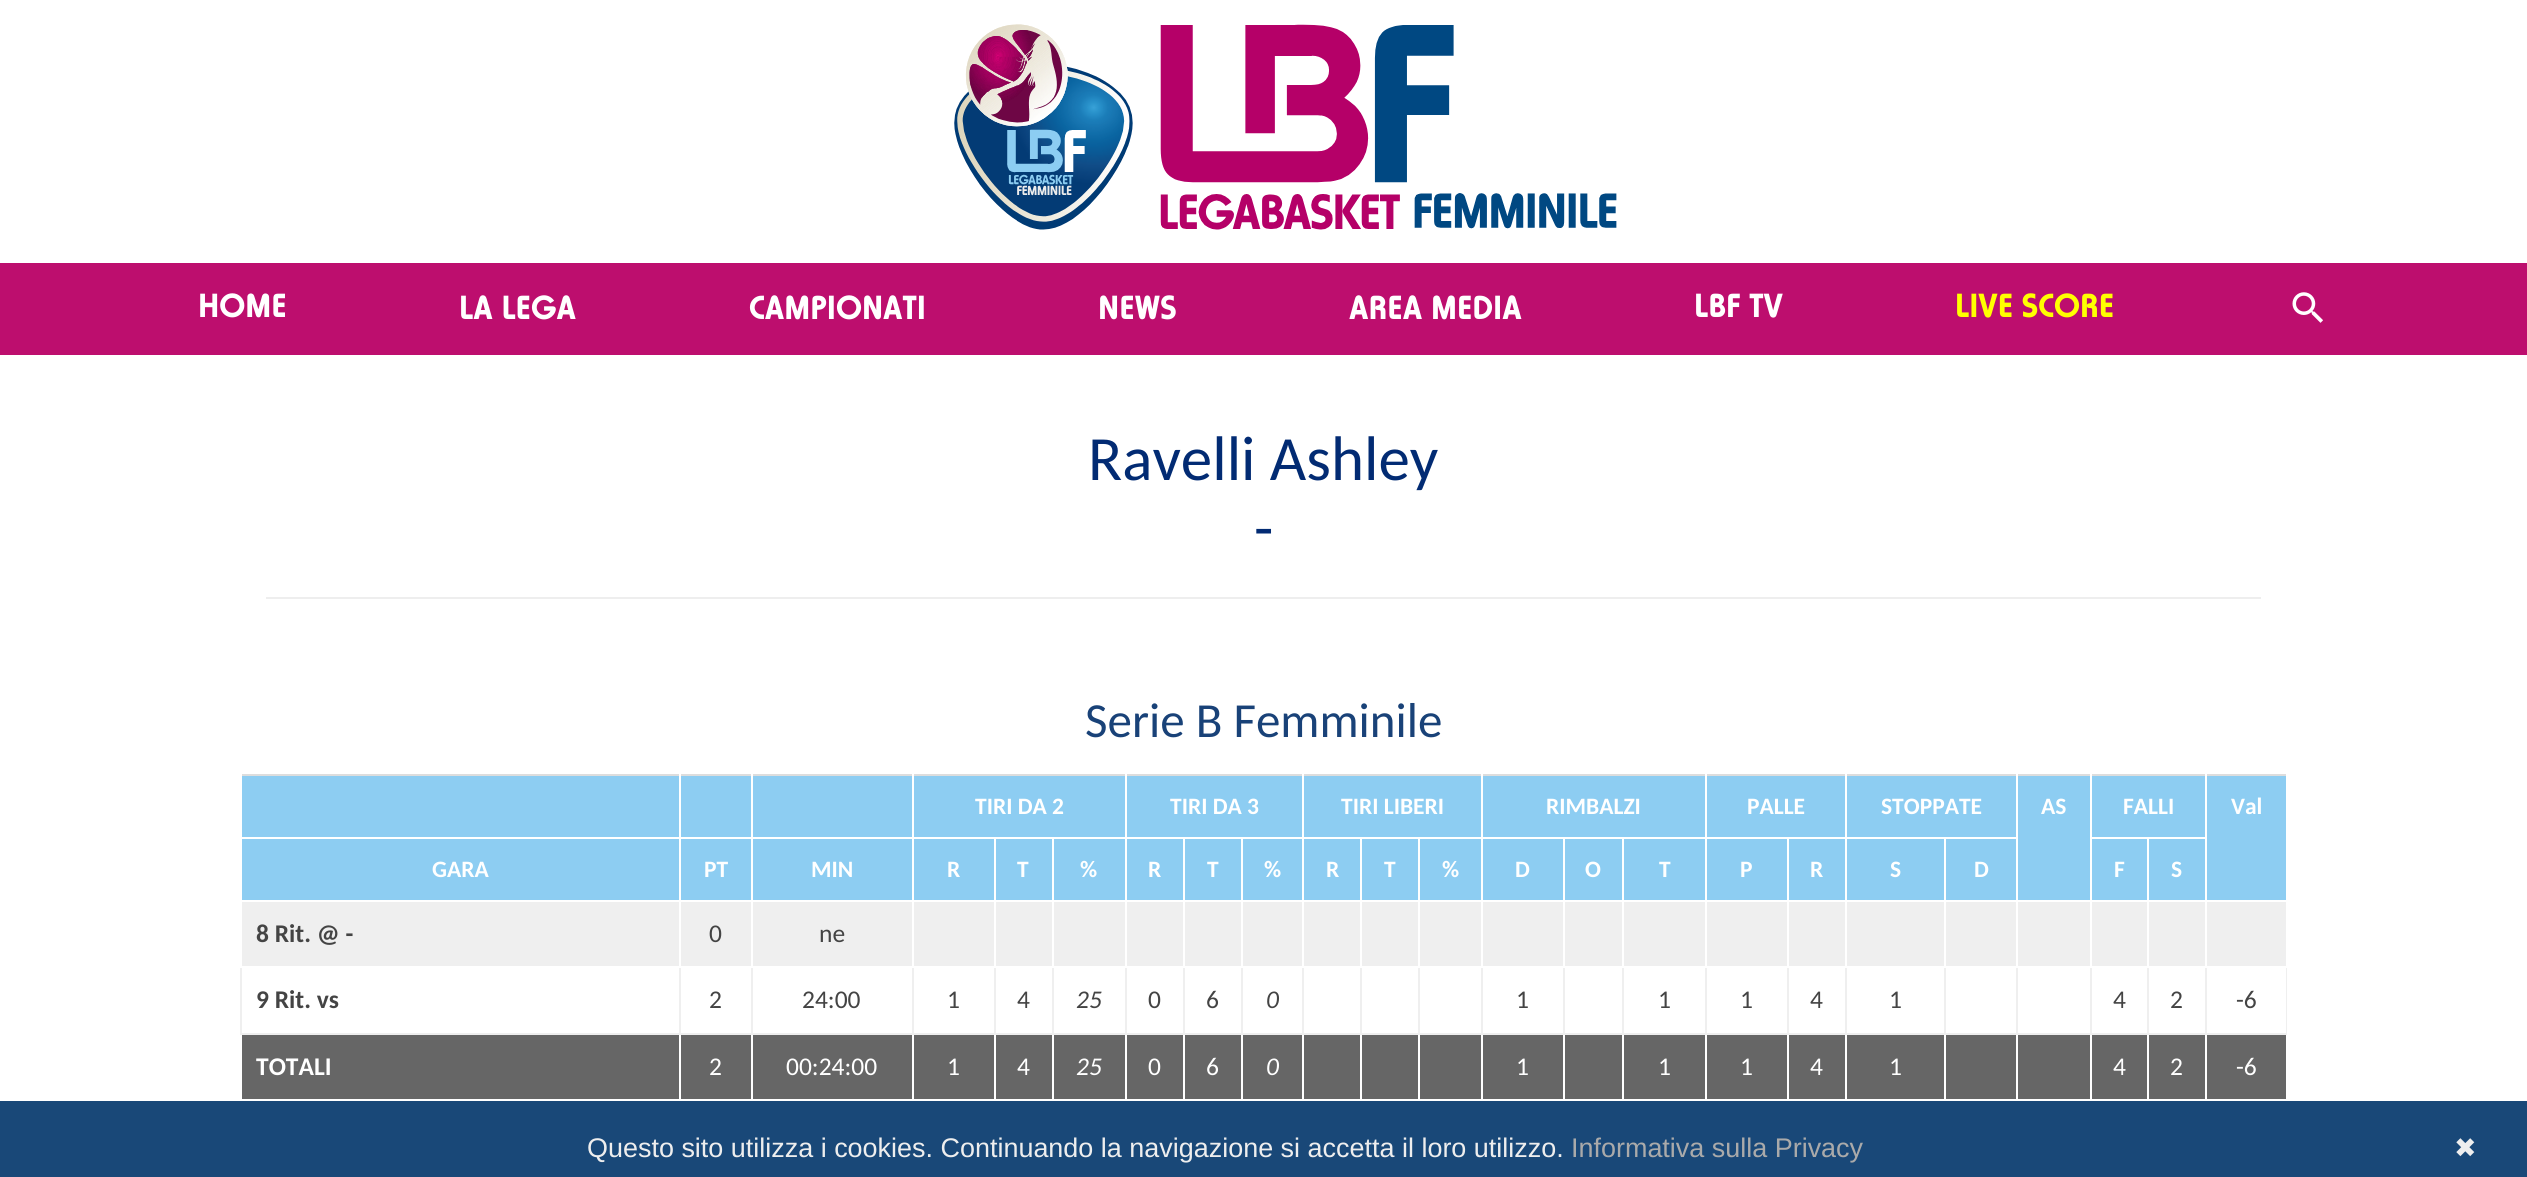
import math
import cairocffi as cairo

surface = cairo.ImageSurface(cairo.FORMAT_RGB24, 2527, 1177)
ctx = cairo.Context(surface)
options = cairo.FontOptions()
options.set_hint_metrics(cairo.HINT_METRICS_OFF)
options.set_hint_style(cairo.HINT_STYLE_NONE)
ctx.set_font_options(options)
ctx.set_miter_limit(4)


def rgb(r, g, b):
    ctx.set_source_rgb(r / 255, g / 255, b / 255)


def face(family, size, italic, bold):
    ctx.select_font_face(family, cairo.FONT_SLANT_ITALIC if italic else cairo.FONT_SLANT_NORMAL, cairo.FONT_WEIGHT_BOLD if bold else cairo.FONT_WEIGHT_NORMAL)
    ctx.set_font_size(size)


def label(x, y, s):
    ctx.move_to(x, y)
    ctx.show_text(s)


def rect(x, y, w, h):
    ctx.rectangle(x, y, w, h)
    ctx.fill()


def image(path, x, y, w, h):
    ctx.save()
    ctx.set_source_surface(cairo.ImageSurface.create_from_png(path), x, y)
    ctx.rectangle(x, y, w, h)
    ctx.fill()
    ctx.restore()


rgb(255, 255, 255)
ctx.paint()
image('image0.png', 954, 24, 663, 206)
rgb(189, 14, 110)
rect(0, 263, 2527, 92)
face('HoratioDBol', 35, 0, 1)
rgb(255, 255, 255)
label(198, 317, 'HOME')
label(459, 319, 'LA LEGA')
label(749, 319, 'CAMPIONATI')
label(1098, 319, 'NEWS')
label(1349, 319, 'AREA MEDIA')
label(1694, 317, 'LBF TV')
rgb(255, 255, 0)
label(1955, 317, 'LIVE SCORE')
image('image1.png', 2292, 292, 31, 31)
rgb(238, 238, 238)
rect(266, 597, 1995, 2)
face('Carlito', 63, 0, 0)
rgb(2, 43, 115)
label(1088, 480, 'Ravelli Ashley')
label(1254, 549, '-')
face('Carlito', 49, 0, 0)
rgb(25, 66, 120)
label(1085, 737, 'Serie B Femminile')
rgb(141, 205, 242)
rect(242, 776, 437, 61)
rgb(221, 221, 221)
rect(240, 774, 2047, 2)
rgb(255, 255, 255)
rect(679, 774, 2, 2)
rect(240, 774, 2, 2)
rgb(141, 205, 242)
rect(681, 776, 70, 61)
rgb(255, 255, 255)
rect(751, 774, 2, 2)
rgb(141, 205, 242)
rect(753, 776, 159, 61)
rgb(255, 255, 255)
rect(912, 774, 2, 2)
rgb(141, 205, 242)
rect(914, 776, 211, 61)
rgb(255, 255, 255)
rect(1125, 774, 2, 2)
face('Carlito', 23.5, 0, 1)
label(975, 814, 'TIRI DA 2')
rgb(141, 205, 242)
rect(1127, 776, 175, 61)
rgb(255, 255, 255)
rect(1302, 774, 2, 2)
label(1170, 814, 'TIRI DA 3')
rgb(141, 205, 242)
rect(1304, 776, 177, 61)
rgb(255, 255, 255)
rect(1481, 774, 2, 2)
label(1341, 814, 'TIRI LIBERI')
rgb(141, 205, 242)
rect(1483, 776, 222, 61)
rgb(255, 255, 255)
rect(1705, 774, 2, 2)
label(1546, 814, 'RIMBALZI')
rgb(141, 205, 242)
rect(1707, 776, 138, 61)
rgb(255, 255, 255)
rect(1845, 774, 2, 2)
label(1747, 814, 'PALLE')
rgb(141, 205, 242)
rect(1847, 776, 169, 61)
rgb(255, 255, 255)
rect(2016, 774, 2, 2)
label(1881, 814, 'STOPPATE')
rgb(141, 205, 242)
rect(2018, 776, 72, 124)
rgb(255, 255, 255)
rect(2090, 774, 2, 2)
label(2041, 814, 'AS')
rgb(141, 205, 242)
rect(2092, 776, 113, 61)
rgb(255, 255, 255)
rect(2205, 774, 2, 2)
label(2123, 814, 'FALLI')
rgb(141, 205, 242)
rect(2207, 776, 79, 124)
rgb(255, 255, 255)
rect(2286, 774, 1, 2)
label(2231, 814, 'Val')
rgb(141, 205, 242)
rect(242, 839, 437, 61)
rgb(255, 255, 255)
label(432, 877, 'GARA')
rgb(141, 205, 242)
rect(681, 839, 70, 61)
rgb(255, 255, 255)
label(704, 877, 'PT')
rgb(141, 205, 242)
rect(753, 839, 159, 61)
rgb(255, 255, 255)
label(811, 877, 'MIN')
rgb(141, 205, 242)
rect(914, 839, 80, 61)
rgb(255, 255, 255)
label(947, 877, 'R')
rgb(141, 205, 242)
rect(996, 839, 56, 61)
rgb(255, 255, 255)
label(1017, 877, 'T')
rgb(141, 205, 242)
rect(1054, 839, 71, 61)
rgb(255, 255, 255)
label(1080, 877, '%')
rgb(141, 205, 242)
rect(1127, 839, 56, 61)
rgb(255, 255, 255)
label(1148, 877, 'R')
rgb(141, 205, 242)
rect(1185, 839, 56, 61)
rgb(255, 255, 255)
label(1207, 877, 'T')
rgb(141, 205, 242)
rect(1243, 839, 59, 61)
rgb(255, 255, 255)
label(1264, 877, '%')
rgb(141, 205, 242)
rect(1304, 839, 56, 61)
rgb(255, 255, 255)
label(1326, 877, 'R')
rgb(141, 205, 242)
rect(1362, 839, 56, 61)
rgb(255, 255, 255)
label(1384, 877, 'T')
rgb(141, 205, 242)
rect(1420, 839, 61, 61)
rgb(255, 255, 255)
label(1442, 877, '%')
rgb(141, 205, 242)
rect(1483, 839, 80, 61)
rgb(255, 255, 255)
label(1515, 877, 'D')
rgb(141, 205, 242)
rect(1565, 839, 57, 61)
rgb(255, 255, 255)
label(1585, 877, 'O')
rgb(141, 205, 242)
rect(1624, 839, 81, 61)
rgb(255, 255, 255)
label(1659, 877, 'T')
rgb(141, 205, 242)
rect(1707, 839, 80, 61)
rgb(255, 255, 255)
label(1740, 877, 'P')
rgb(141, 205, 242)
rect(1789, 839, 56, 61)
rgb(255, 255, 255)
label(1810, 877, 'R')
rgb(141, 205, 242)
rect(1847, 839, 97, 61)
rgb(255, 255, 255)
label(1890, 877, 'S')
rgb(141, 205, 242)
rect(1946, 839, 70, 61)
rgb(255, 255, 255)
label(1974, 877, 'D')
rgb(141, 205, 242)
rect(2092, 839, 55, 61)
rgb(255, 255, 255)
label(2114, 877, 'F')
rgb(141, 205, 242)
rect(2149, 839, 56, 61)
rgb(255, 255, 255)
label(2171, 877, 'S')
rgb(239, 239, 239)
rect(242, 902, 437, 64)
rect(2286, 966, 1, 68)
rect(2205, 1033, 82, 2)
rect(2205, 966, 2, 68)
rect(2147, 1033, 60, 2)
rect(2147, 966, 2, 68)
rect(2090, 1033, 59, 2)
rect(2090, 966, 2, 68)
rect(2016, 1033, 75, 2)
rect(2016, 966, 2, 68)
rect(1944, 1033, 74, 2)
rect(1944, 966, 2, 68)
rect(1845, 1033, 101, 2)
rect(1845, 966, 2, 68)
rect(1787, 1033, 59, 2)
rect(1787, 966, 2, 68)
rect(1705, 1033, 84, 2)
rect(1705, 966, 2, 68)
rect(1622, 1033, 84, 2)
rect(1622, 966, 2, 68)
rect(1563, 1033, 61, 2)
rect(1563, 966, 2, 68)
rect(1481, 1033, 84, 2)
rect(1481, 966, 2, 68)
rect(1418, 1033, 64, 2)
rect(1418, 966, 2, 68)
rect(1360, 1033, 59, 2)
rect(1360, 966, 2, 68)
rect(1302, 1033, 60, 2)
rect(1302, 966, 2, 68)
rect(1241, 1033, 63, 2)
rect(1241, 966, 2, 68)
rect(1183, 1033, 60, 2)
rect(1183, 966, 2, 68)
rect(1125, 1033, 60, 2)
rect(1125, 966, 2, 68)
rect(1052, 1033, 75, 2)
rect(1052, 966, 2, 68)
rect(994, 1033, 60, 2)
rect(994, 966, 2, 68)
rect(912, 1033, 84, 2)
rect(912, 966, 2, 68)
rect(751, 1033, 163, 2)
rect(751, 966, 2, 68)
rect(679, 1033, 74, 2)
rect(679, 966, 2, 68)
rect(240, 1033, 441, 2)
rect(240, 966, 2, 68)
rgb(255, 255, 255)
rect(240, 966, 2, 2)
face('Carlito', 25.5, 0, 1)
rgb(68, 68, 68)
label(256, 942, '8 Rit. @ -')
rgb(239, 239, 239)
rect(681, 902, 70, 64)
rgb(255, 255, 255)
rect(679, 966, 2, 2)
face('Carlito', 25.5, 0, 0)
rgb(68, 68, 68)
label(709, 942, '0')
rgb(239, 239, 239)
rect(753, 902, 159, 64)
rgb(255, 255, 255)
rect(751, 966, 2, 2)
rgb(68, 68, 68)
label(819, 942, 'ne')
rgb(239, 239, 239)
rect(914, 902, 80, 64)
rgb(255, 255, 255)
rect(912, 966, 2, 2)
rgb(239, 239, 239)
rect(996, 902, 56, 64)
rgb(255, 255, 255)
rect(994, 966, 2, 2)
rgb(239, 239, 239)
rect(1054, 902, 71, 64)
rgb(255, 255, 255)
rect(1052, 966, 2, 2)
rgb(239, 239, 239)
rect(1127, 902, 56, 64)
rgb(255, 255, 255)
rect(1125, 966, 2, 2)
rgb(239, 239, 239)
rect(1185, 902, 56, 64)
rgb(255, 255, 255)
rect(1183, 966, 2, 2)
rgb(239, 239, 239)
rect(1243, 902, 59, 64)
rgb(255, 255, 255)
rect(1241, 966, 2, 2)
rgb(239, 239, 239)
rect(1304, 902, 56, 64)
rgb(255, 255, 255)
rect(1302, 966, 2, 2)
rgb(239, 239, 239)
rect(1362, 902, 56, 64)
rgb(255, 255, 255)
rect(1360, 966, 2, 2)
rgb(239, 239, 239)
rect(1420, 902, 61, 64)
rgb(255, 255, 255)
rect(1418, 966, 2, 2)
rgb(239, 239, 239)
rect(1483, 902, 80, 64)
rgb(255, 255, 255)
rect(1481, 966, 2, 2)
rgb(239, 239, 239)
rect(1565, 902, 57, 64)
rgb(255, 255, 255)
rect(1563, 966, 2, 2)
rgb(239, 239, 239)
rect(1624, 902, 81, 64)
rgb(255, 255, 255)
rect(1622, 966, 2, 2)
rgb(239, 239, 239)
rect(1707, 902, 80, 64)
rgb(255, 255, 255)
rect(1705, 966, 2, 2)
rgb(239, 239, 239)
rect(1789, 902, 56, 64)
rgb(255, 255, 255)
rect(1787, 966, 2, 2)
rgb(239, 239, 239)
rect(1847, 902, 97, 64)
rgb(255, 255, 255)
rect(1845, 966, 2, 2)
rgb(239, 239, 239)
rect(1946, 902, 70, 64)
rgb(255, 255, 255)
rect(1944, 966, 2, 2)
rgb(239, 239, 239)
rect(2018, 902, 72, 64)
rgb(255, 255, 255)
rect(2016, 966, 2, 2)
rgb(239, 239, 239)
rect(2092, 902, 55, 64)
rgb(255, 255, 255)
rect(2090, 966, 2, 2)
rgb(239, 239, 239)
rect(2149, 902, 56, 64)
rgb(255, 255, 255)
rect(2147, 966, 2, 2)
rgb(239, 239, 239)
rect(2207, 902, 79, 64)
rgb(255, 255, 255)
rect(2286, 966, 1, 2)
rect(2205, 966, 2, 2)
face('Carlito', 25.5, 0, 1)
rgb(68, 68, 68)
label(256, 1008, '9 Rit. vs')
face('Carlito', 25.5, 0, 0)
label(709, 1008, '2')
label(802, 1008, '24:00')
label(947, 1008, '1')
label(1017, 1008, '4')
face('Carlito', 25.5, 1, 0)
label(1076, 1008, '25')
face('Carlito', 25.5, 0, 0)
label(1148, 1008, '0')
label(1206, 1008, '6')
face('Carlito', 25.5, 1, 0)
label(1266, 1008, '0')
face('Carlito', 25.5, 0, 0)
label(1516, 1008, '1')
label(1658, 1008, '1')
label(1740, 1008, '1')
label(1810, 1008, '4')
label(1889, 1008, '1')
label(2113, 1008, '4')
label(2170, 1008, '2')
label(2236, 1008, '-6')
rgb(102, 102, 102)
rect(242, 1035, 437, 64)
face('Carlito', 25.5, 0, 1)
rgb(255, 255, 255)
label(256, 1075, 'TOTALI')
rgb(102, 102, 102)
rect(681, 1035, 70, 64)
face('Carlito', 25.5, 0, 0)
rgb(255, 255, 255)
label(709, 1075, '2')
rgb(102, 102, 102)
rect(753, 1035, 159, 64)
rgb(255, 255, 255)
label(786, 1075, '00:24:00')
rgb(102, 102, 102)
rect(914, 1035, 80, 64)
rgb(255, 255, 255)
label(947, 1075, '1')
rgb(102, 102, 102)
rect(996, 1035, 56, 64)
rgb(255, 255, 255)
label(1017, 1075, '4')
rgb(102, 102, 102)
rect(1054, 1035, 71, 64)
face('Carlito', 25.5, 1, 0)
rgb(255, 255, 255)
label(1076, 1075, '25')
rgb(102, 102, 102)
rect(1127, 1035, 56, 64)
face('Carlito', 25.5, 0, 0)
rgb(255, 255, 255)
label(1148, 1075, '0')
rgb(102, 102, 102)
rect(1185, 1035, 56, 64)
rgb(255, 255, 255)
label(1206, 1075, '6')
rgb(102, 102, 102)
rect(1243, 1035, 59, 64)
face('Carlito', 25.5, 1, 0)
rgb(255, 255, 255)
label(1266, 1075, '0')
rgb(102, 102, 102)
rect(1304, 1035, 56, 64)
rect(1362, 1035, 56, 64)
rect(1420, 1035, 61, 64)
rect(1483, 1035, 80, 64)
face('Carlito', 25.5, 0, 0)
rgb(255, 255, 255)
label(1516, 1075, '1')
rgb(102, 102, 102)
rect(1565, 1035, 57, 64)
rect(1624, 1035, 81, 64)
rgb(255, 255, 255)
label(1658, 1075, '1')
rgb(102, 102, 102)
rect(1707, 1035, 80, 64)
rgb(255, 255, 255)
label(1740, 1075, '1')
rgb(102, 102, 102)
rect(1789, 1035, 56, 64)
rgb(255, 255, 255)
label(1810, 1075, '4')
rgb(102, 102, 102)
rect(1847, 1035, 97, 64)
rgb(255, 255, 255)
label(1889, 1075, '1')
rgb(102, 102, 102)
rect(1946, 1035, 70, 64)
rect(2018, 1035, 72, 64)
rect(2092, 1035, 55, 64)
rgb(255, 255, 255)
label(2113, 1075, '4')
rgb(102, 102, 102)
rect(2149, 1035, 56, 64)
rgb(255, 255, 255)
label(2170, 1075, '2')
rgb(102, 102, 102)
rect(2207, 1035, 79, 64)
rgb(255, 255, 255)
label(2236, 1075, '-6')
rgb(25, 72, 120)
rect(0, 1101, 2527, 76)
face('Liberation Sans', 26.95, 0, 0)
rgb(238, 238, 238)
label(587, 1157, 'Questo sito utilizza i cookies. Continuando la navigazione si accetta il loro utilizzo.')
rgb(170, 170, 170)
label(1571, 1157, 'Informativa sulla Privacy')
face('DejaVu Sans', 26.95, 0, 0)
rgb(238, 238, 238)
label(2454, 1157, '✖')
surface.write_to_png('render.png')
